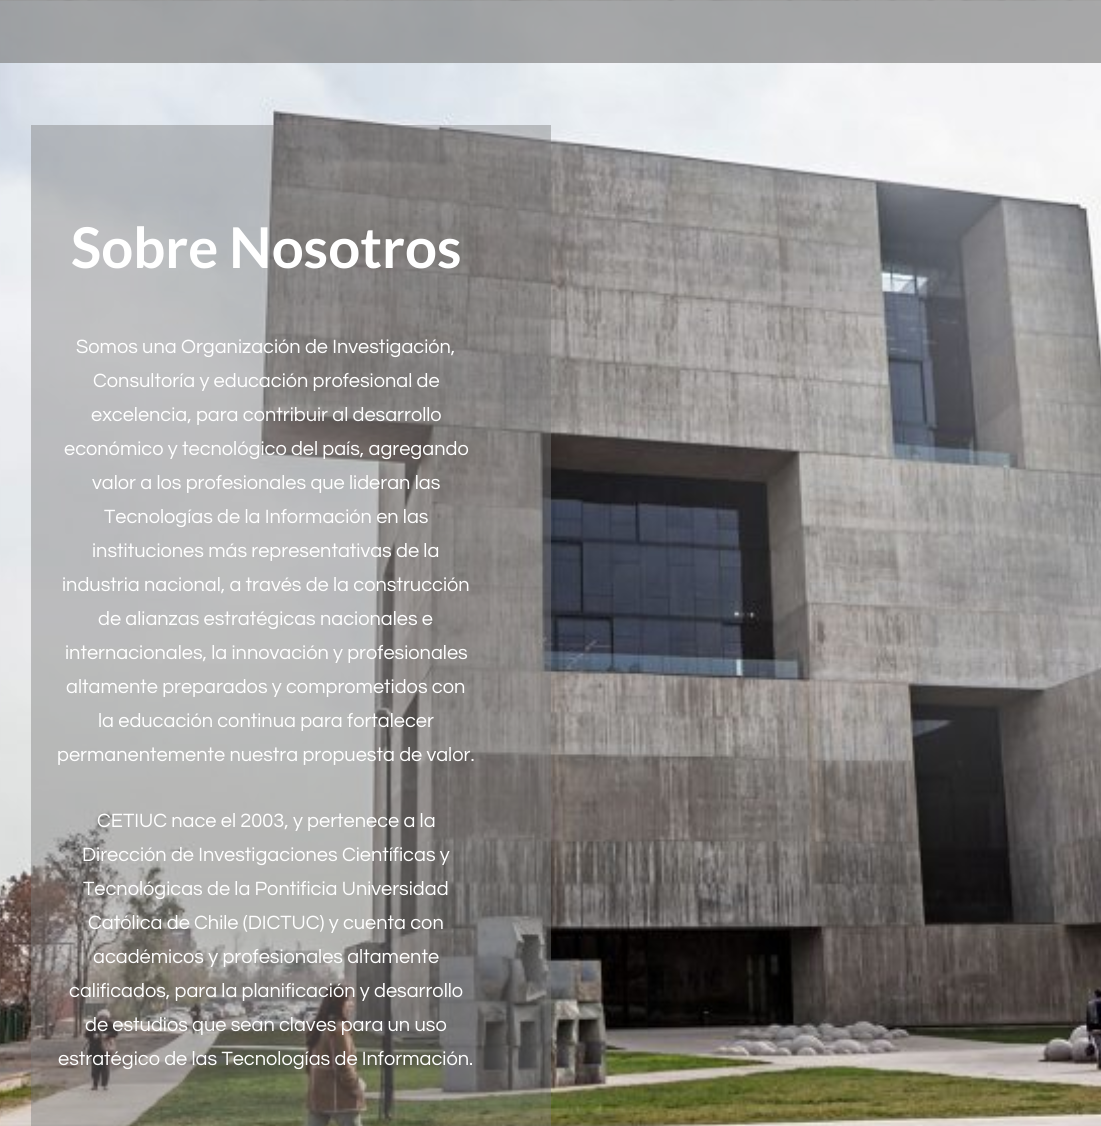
import math
import cairocffi as cairo

surface = cairo.ImageSurface(cairo.FORMAT_RGB24, 1101, 1126)
ctx = cairo.Context(surface)
options = cairo.FontOptions()
options.set_hint_metrics(cairo.HINT_METRICS_OFF)
options.set_hint_style(cairo.HINT_STYLE_NONE)
ctx.set_font_options(options)
ctx.set_miter_limit(4)


def rgb(r, g, b):
    ctx.set_source_rgb(r / 255, g / 255, b / 255)


def face(family, size, italic, bold):
    ctx.select_font_face(family, cairo.FONT_SLANT_ITALIC if italic else cairo.FONT_SLANT_NORMAL, cairo.FONT_WEIGHT_BOLD if bold else cairo.FONT_WEIGHT_NORMAL)
    ctx.set_font_size(size)


def label(x, y, s):
    ctx.move_to(x, y)
    ctx.show_text(s)


def rect(x, y, w, h):
    ctx.rectangle(x, y, w, h)
    ctx.fill()


def image(path, x, y, w, h):
    ctx.save()
    ctx.set_source_surface(cairo.ImageSurface.create_from_png(path), x, y)
    ctx.rectangle(x, y, w, h)
    ctx.fill()
    ctx.restore()


rgb(255, 255, 255)
ctx.paint()
image('image0.png', 0, 0, 1101, 1126)
ctx.set_source_rgba(0.498, 0.498, 0.498, 0.65)
rect(0, 0, 1101, 63)
ctx.set_source_rgba(0.478, 0.478, 0.478, 0.42)
rect(31, 125, 520, 1001)
face('Lato', 56.25, 0, 1)
rgb(255, 255, 255)
label(71, 268, 'Sobre Nosotros')
face('Questrial', 20, 0, 0)
label(76, 353, 'Somos una Organización de Investigación,')
label(93, 387, 'Consultoría y educación profesional de')
label(91, 421, 'excelencia, para contribuir al desarrollo')
label(64, 455, 'económico y tecnológico del país, agregando')
label(92, 489, 'valor a los profesionales que lideran las')
label(104, 523, 'Tecnologías de la Información en las')
label(92, 557, 'instituciones más representativas de la')
label(62, 591, 'industria nacional, a través de la construcción')
label(98, 625, 'de alianzas estratégicas nacionales e')
label(65, 659, 'internacionales, la innovación y profesionales')
label(66, 693, 'altamente preparados y comprometidos con')
label(98, 727, 'la educación continua para fortalecer')
label(57, 761, 'permanentemente nuestra propuesta de valor.')
label(97, 827, 'CETIUC nace el 2003, y pertenece a la')
label(82, 861, 'Dirección de Investigaciones Científicas y')
label(83, 895, 'Tecnológicas de la Pontificia Universidad')
label(88, 929, 'Católica de Chile (DICTUC) y cuenta con')
label(93, 963, 'académicos y profesionales altamente')
label(69, 997, 'calificados, para la planificación y desarrollo')
label(85, 1031, 'de estudios que sean claves para un uso')
label(58, 1065, 'estratégico de las Tecnologías de Información.')
surface.write_to_png('render.png')
